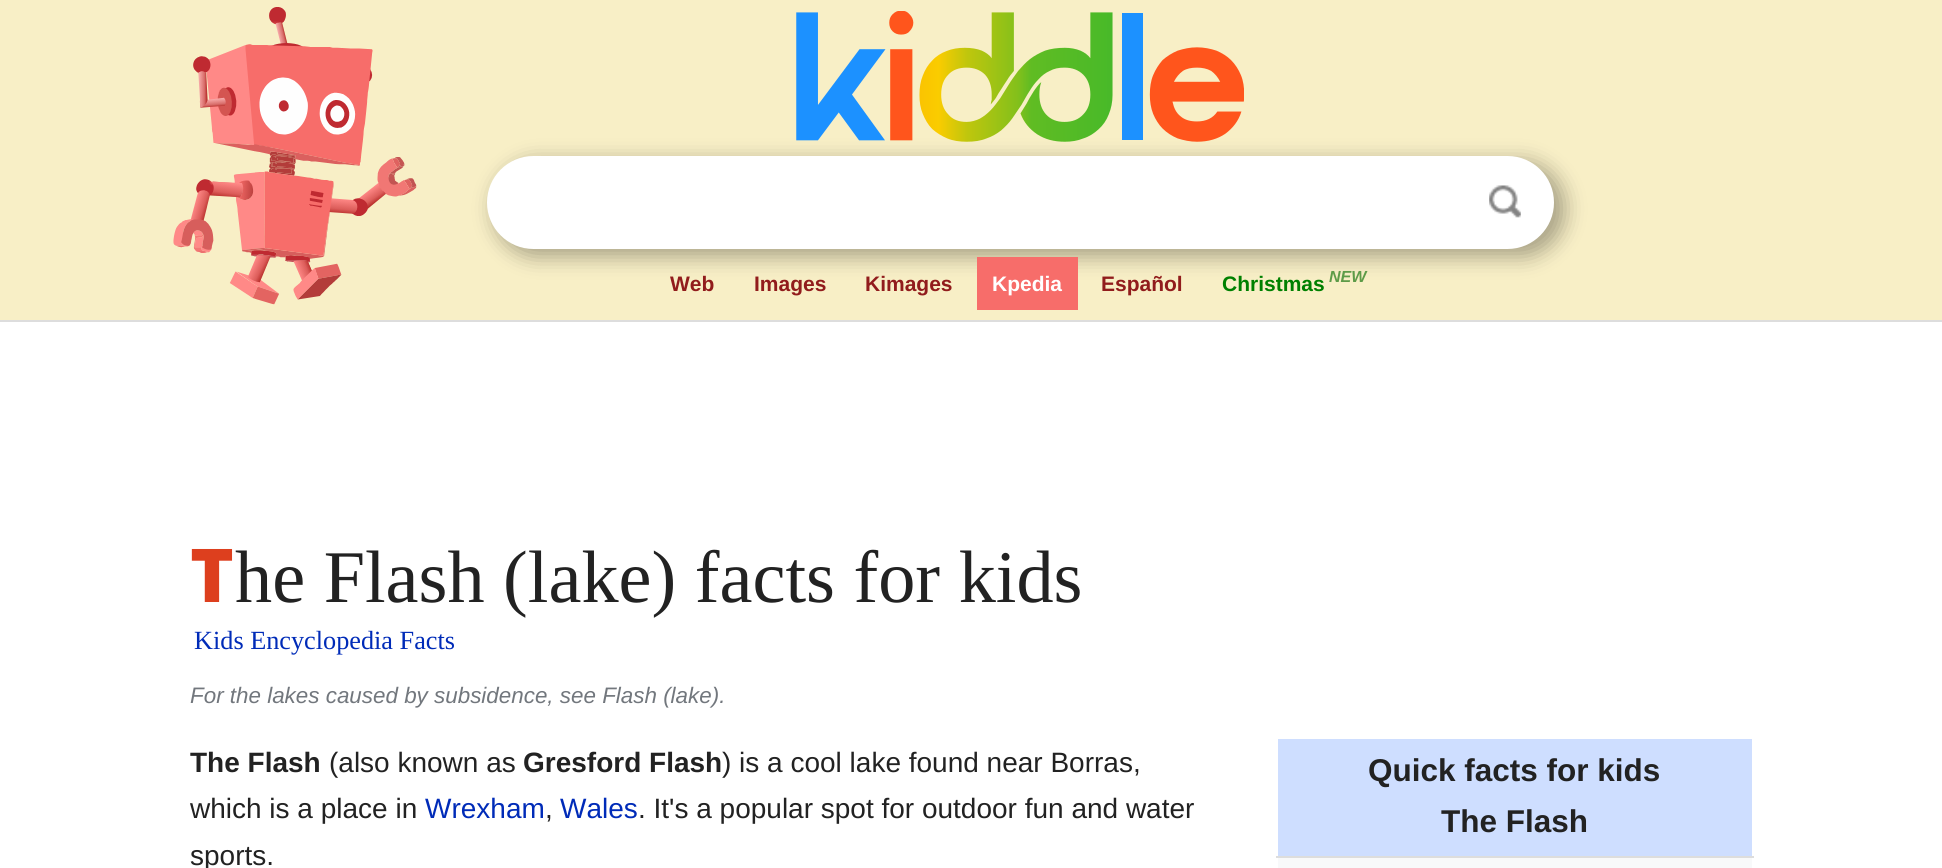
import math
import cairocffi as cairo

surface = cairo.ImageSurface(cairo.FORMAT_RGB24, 1942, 868)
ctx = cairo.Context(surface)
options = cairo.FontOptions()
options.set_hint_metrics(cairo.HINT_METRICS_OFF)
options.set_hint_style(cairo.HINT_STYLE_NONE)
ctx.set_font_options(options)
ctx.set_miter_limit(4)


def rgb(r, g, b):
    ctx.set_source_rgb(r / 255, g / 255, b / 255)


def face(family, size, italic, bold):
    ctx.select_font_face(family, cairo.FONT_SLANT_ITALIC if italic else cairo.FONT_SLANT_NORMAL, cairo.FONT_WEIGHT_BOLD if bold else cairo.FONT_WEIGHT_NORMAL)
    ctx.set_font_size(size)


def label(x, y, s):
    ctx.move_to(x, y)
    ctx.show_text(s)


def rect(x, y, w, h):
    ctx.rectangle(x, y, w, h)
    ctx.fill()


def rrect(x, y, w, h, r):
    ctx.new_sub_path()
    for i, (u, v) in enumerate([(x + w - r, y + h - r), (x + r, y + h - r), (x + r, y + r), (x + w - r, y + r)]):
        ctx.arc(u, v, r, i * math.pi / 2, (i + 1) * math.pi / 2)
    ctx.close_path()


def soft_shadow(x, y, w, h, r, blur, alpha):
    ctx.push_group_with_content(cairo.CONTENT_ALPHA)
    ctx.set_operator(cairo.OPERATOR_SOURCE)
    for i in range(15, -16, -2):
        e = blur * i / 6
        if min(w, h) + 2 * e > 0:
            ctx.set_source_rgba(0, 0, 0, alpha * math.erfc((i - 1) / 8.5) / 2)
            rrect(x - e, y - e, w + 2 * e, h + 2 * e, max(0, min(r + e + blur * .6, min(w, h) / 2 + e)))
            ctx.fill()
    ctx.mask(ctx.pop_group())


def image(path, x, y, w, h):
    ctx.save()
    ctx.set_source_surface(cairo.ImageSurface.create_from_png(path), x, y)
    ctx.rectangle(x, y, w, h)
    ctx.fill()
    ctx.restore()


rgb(248, 239, 198)
ctx.paint()
rgb(221, 221, 221)
rect(0, 320, 1942, 2)
image('image0.png', 173, 7, 244, 298)
rgb(0, 0, 0)
soft_shadow(494, 161, 1071, 96, 48, 10.5, 0.32)
image('image1.png', 796, 11, 448, 131)
rgb(255, 255, 255)
rrect(490.5, 159.5, 1060, 86, 43)
ctx.fill_preserve()
ctx.set_line_width(7)
ctx.stroke()
image('image2.png', 1489, 185, 32, 33)
face('Liberation Sans', 21, 0, 1)
rgb(145, 28, 28)
label(670, 291, 'Web')
label(754, 291, 'Images')
label(865, 291, 'Kimages')
rgb(247, 109, 106)
rect(977, 257, 101, 53)
rgb(255, 255, 255)
label(992, 291, 'Kpedia')
rgb(145, 28, 28)
label(1101, 291, 'Español')
rgb(0, 128, 0)
label(1222, 291, 'Christmas')
face('Liberation Sans', 16, 1, 1)
rgb(93, 155, 72)
label(1329, 282, 'NEW')
rgb(255, 255, 255)
rect(0, 322, 1942, 546)
face('Noto Sans Black', 74.25, 0, 0)
rgb(221, 63, 30)
label(190, 602, 'T')
face('Liberation Serif', 74.25, 0, 0)
rgb(34, 34, 34)
label(235, 602, 'he Flash (lake) facts for kids')
face('Liberation Serif', 26.25, 0, 0)
rgb(0, 43, 184)
label(194, 649, 'Kids Encyclopedia Facts')
face('Liberation Sans', 22.4, 1, 0)
rgb(114, 119, 125)
label(190, 703, 'For the lakes caused by subsidence, see Flash (lake).')
face('Liberation Sans', 28, 0, 1)
rgb(34, 34, 34)
label(190, 772, 'The Flash')
face('Liberation Sans', 28, 0, 0)
label(329, 772, '(also known as')
face('Liberation Sans', 28, 0, 1)
label(523, 772, 'Gresford Flash')
face('Liberation Sans', 28, 0, 0)
label(722, 772, ') is a cool lake found near Borras,')
label(190, 818, 'which is a place in')
rgb(0, 43, 184)
label(425, 818, 'Wrexham')
rgb(34, 34, 34)
label(545, 818, ',')
rgb(0, 43, 184)
label(560, 818, 'Wales')
rgb(34, 34, 34)
label(638, 818, '. It\'s a popular spot for outdoor fun and water')
label(190, 865, 'sports.')
rgb(248, 249, 250)
rect(1278, 858, 474, 10)
rgb(206, 222, 255)
rect(1278, 739, 474, 117)
rgb(221, 221, 221)
rect(1276, 856, 478, 2)
face('Liberation Sans', 31.5, 0, 1)
rgb(34, 34, 34)
label(1368, 781, 'Quick facts for kids')
label(1441, 832, 'The Flash')
surface.write_to_png('render.png')
